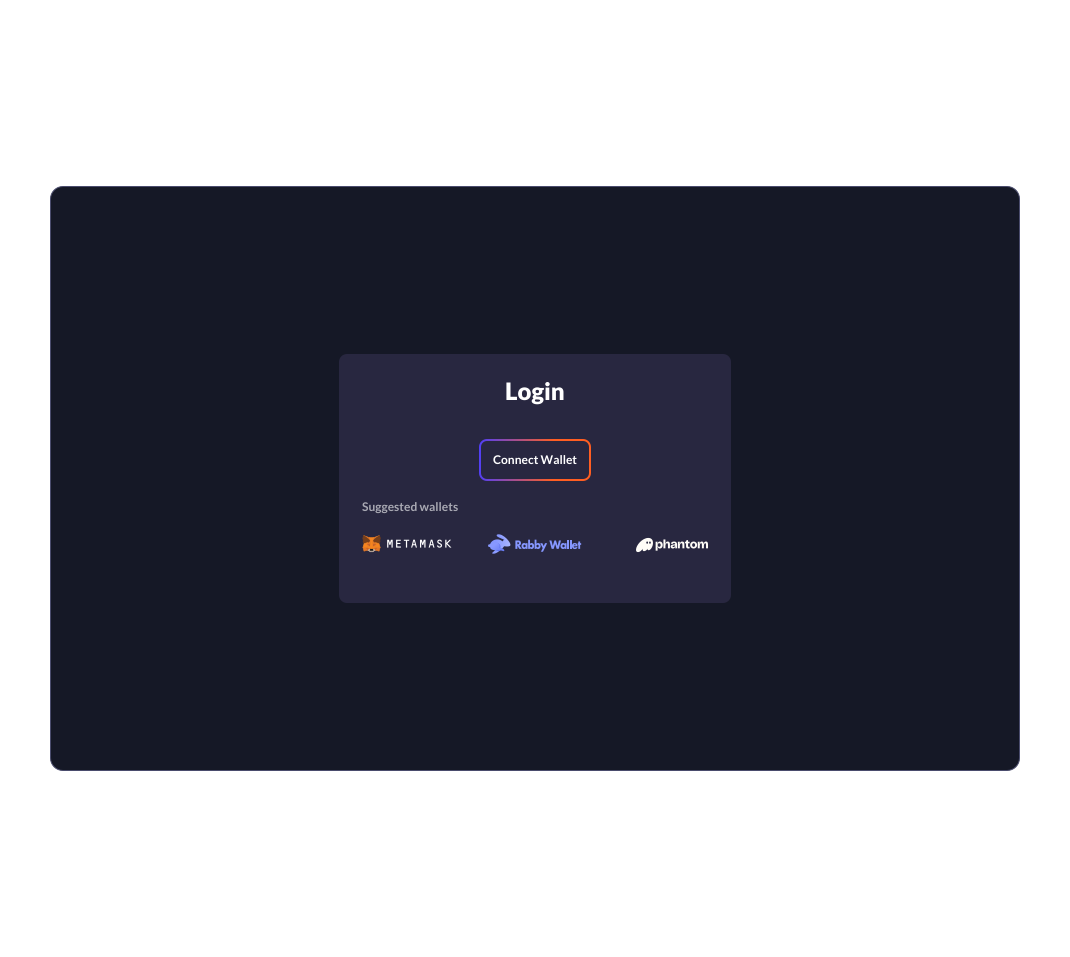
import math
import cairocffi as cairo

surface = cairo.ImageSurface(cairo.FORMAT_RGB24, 1070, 957)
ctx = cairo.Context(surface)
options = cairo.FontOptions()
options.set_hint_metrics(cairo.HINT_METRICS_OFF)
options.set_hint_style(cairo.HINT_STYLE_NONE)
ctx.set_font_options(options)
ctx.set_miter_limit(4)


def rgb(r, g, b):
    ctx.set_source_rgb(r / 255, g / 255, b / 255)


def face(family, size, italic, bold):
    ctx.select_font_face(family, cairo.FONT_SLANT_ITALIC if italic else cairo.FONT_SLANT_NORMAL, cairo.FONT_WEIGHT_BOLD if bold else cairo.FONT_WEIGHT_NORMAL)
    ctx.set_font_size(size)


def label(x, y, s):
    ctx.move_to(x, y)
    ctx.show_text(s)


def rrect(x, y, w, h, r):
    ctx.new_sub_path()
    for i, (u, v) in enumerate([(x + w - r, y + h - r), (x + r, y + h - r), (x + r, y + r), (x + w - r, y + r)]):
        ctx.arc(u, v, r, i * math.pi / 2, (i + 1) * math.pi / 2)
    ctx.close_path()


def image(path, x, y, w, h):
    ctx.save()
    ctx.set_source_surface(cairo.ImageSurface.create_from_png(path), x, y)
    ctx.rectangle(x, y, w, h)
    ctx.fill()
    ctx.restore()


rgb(255, 255, 255)
ctx.paint()
rgb(21, 24, 38)
rrect(50.5, 186.5, 969, 584, 12.5)
ctx.fill_preserve()
rgb(74, 76, 109)
ctx.set_line_width(1)
ctx.stroke()
rgb(40, 39, 64)
rrect(339, 354, 392, 249, 8)
ctx.fill()
face('Lato Black', 24, 0, 0)
rgb(255, 255, 255)
label(505, 400, 'Login')
gradient = cairo.LinearGradient(478, 458, 592, 462)
gradient.add_color_stop_rgba(0.01, 0.318, 0.247, 0.961, 1)
gradient.add_color_stop_rgba(0.66, 1, 0.369, 0.133, 1)
gradient.add_color_stop_rgba(0.97, 1, 0.369, 0.133, 1)
ctx.set_source(gradient)
rrect(479, 439, 112, 42, 8)
ctx.fill()
rgb(40, 39, 64)
rrect(481, 441, 108, 38, 6)
ctx.fill()
face('Lato', 12, 0, 1)
rgb(255, 255, 255)
label(493, 464, 'Connect Wallet')
rgb(169, 169, 179)
label(362, 511, 'Suggested wallets')
image('image0.png', 362, 535, 90, 18)
image('image1.png', 488, 534, 94, 20)
image('image2.png', 636, 537, 72, 16)
surface.write_to_png('render.png')
